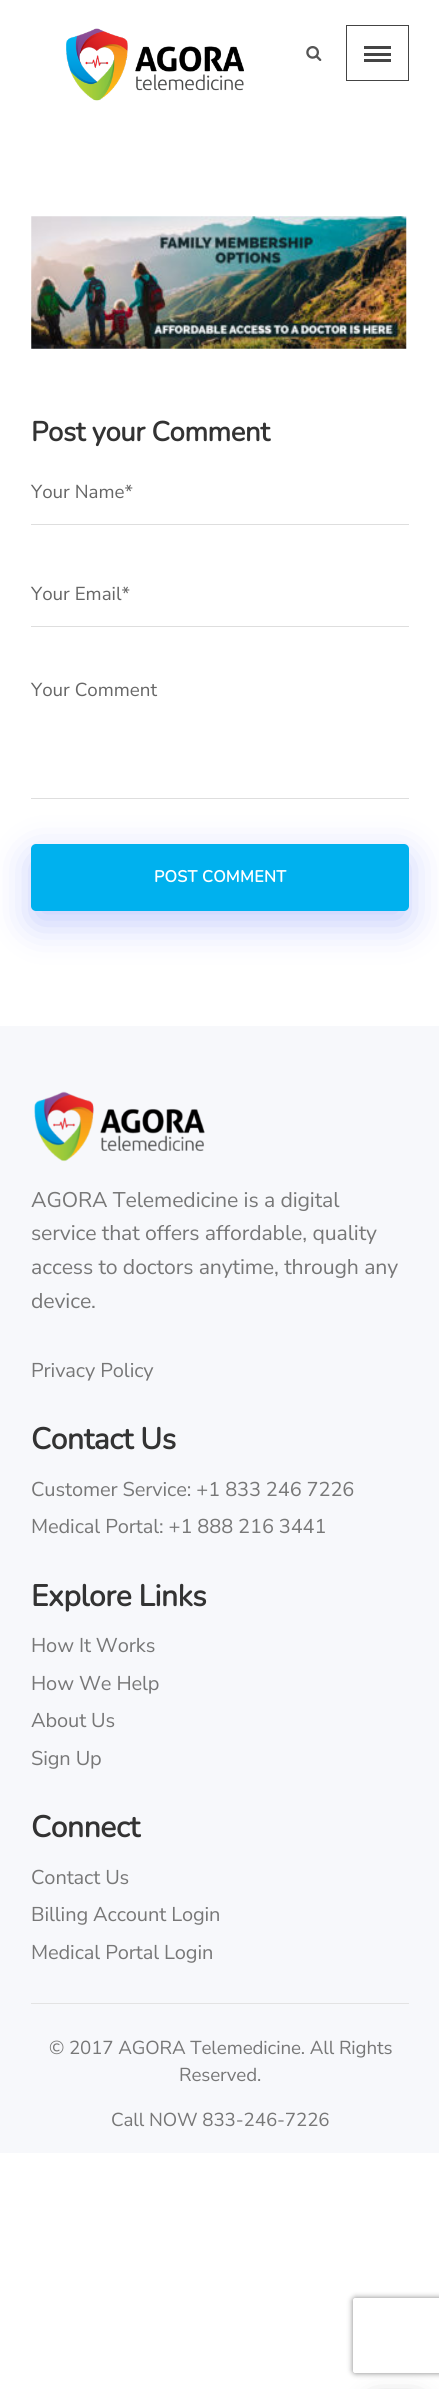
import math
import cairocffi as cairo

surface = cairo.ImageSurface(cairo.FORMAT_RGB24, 439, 2389)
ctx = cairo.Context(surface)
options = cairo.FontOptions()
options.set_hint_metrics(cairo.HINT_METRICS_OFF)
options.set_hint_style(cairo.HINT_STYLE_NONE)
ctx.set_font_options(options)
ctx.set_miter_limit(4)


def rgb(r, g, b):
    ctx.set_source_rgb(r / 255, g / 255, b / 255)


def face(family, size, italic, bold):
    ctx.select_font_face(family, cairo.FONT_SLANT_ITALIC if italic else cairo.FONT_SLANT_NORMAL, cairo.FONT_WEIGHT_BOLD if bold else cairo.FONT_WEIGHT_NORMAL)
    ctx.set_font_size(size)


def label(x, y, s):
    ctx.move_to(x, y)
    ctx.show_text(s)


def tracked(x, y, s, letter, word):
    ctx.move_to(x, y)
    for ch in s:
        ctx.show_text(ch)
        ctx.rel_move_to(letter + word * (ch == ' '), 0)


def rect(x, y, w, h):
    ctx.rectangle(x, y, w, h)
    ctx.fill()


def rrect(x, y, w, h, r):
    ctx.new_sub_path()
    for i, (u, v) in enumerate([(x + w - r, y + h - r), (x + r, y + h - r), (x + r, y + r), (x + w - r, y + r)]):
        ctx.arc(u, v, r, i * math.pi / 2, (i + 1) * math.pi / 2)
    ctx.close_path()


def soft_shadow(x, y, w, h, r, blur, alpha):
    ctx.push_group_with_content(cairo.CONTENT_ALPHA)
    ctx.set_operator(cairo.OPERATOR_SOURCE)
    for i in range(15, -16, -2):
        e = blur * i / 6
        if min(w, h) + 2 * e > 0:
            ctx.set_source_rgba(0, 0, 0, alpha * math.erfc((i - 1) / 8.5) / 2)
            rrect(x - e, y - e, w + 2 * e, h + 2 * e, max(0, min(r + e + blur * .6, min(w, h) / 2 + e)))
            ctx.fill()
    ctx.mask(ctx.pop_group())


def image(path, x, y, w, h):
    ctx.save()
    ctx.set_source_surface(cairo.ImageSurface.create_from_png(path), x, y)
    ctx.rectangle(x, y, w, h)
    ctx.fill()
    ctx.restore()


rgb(255, 255, 255)
ctx.paint()
image('image0.png', 66, 28, 178, 73)
image('image1.png', 306, 46, 16, 15)
ctx.rectangle(346.5, 25.5, 62, 55)
rgb(68, 68, 68)
ctx.set_line_width(1)
ctx.stroke()
rect(364, 46, 27, 3)
rect(364, 53, 27, 3)
rect(364, 59, 27, 3)
image('image2.png', 31, 216, 376, 133)
face('Nunito', 27.5, 0, 1)
rgb(51, 51, 51)
tracked(31, 441, 'Post your Comment', -0.4, 0)
rgb(222, 222, 222)
rect(31, 524, 378, 1)
face('Nunito Sans ExtraLight', 18.75, 0, 0)
rgb(102, 102, 102)
label(31, 498, 'Your Name*')
rgb(222, 222, 222)
rect(31, 626, 378, 1)
rgb(102, 102, 102)
label(31, 600, 'Your Email*')
rgb(222, 222, 222)
rect(31, 798, 378, 1)
rgb(102, 102, 102)
label(31, 696, 'Your Comment')
rgb(61, 89, 250)
soft_shadow(31, 856, 378, 68, 5, 19, 0.3)
rgb(0, 177, 238)
rrect(31, 844, 378, 67, 5)
ctx.fill()
face('Nunito', 16.25, 0, 1)
rgb(255, 255, 255)
tracked(154, 882, 'POST COMMENT', 0.25, 0)
rgb(247, 248, 251)
rect(0, 1026, 439, 1127)
image('image3.png', 34, 1091, 171, 71)
face('Nunito Sans ExtraLight', 21.25, 0, 0)
rgb(119, 119, 119)
tracked(31, 1207, 'AGORA Telemedicine is a digital', -0.1, 0)
tracked(31, 1240, 'service that offers affordable, quality', -0.1, 0)
tracked(31, 1274, 'access to doctors anytime, through any', -0.1, 0)
tracked(31, 1308, 'device.', -0.1, 0)
face('Nunito Sans ExtraLight', 20, 0, 0)
tracked(31, 1377, 'Privacy Policy', -0.1, 0)
face('Nunito', 30, 0, 1)
rgb(51, 51, 51)
tracked(31, 1449, 'Contact Us', -0.4, 0)
face('Nunito Sans ExtraLight', 20, 0, 0)
rgb(119, 119, 119)
tracked(31, 1496, 'Customer Service: +1 833 246 7226', -0.1, 0)
tracked(31, 1533, 'Medical Portal: +1 888 216 3441', -0.1, 0)
face('Nunito', 30, 0, 1)
rgb(51, 51, 51)
tracked(31, 1606, 'Explore Links', -0.4, 0)
face('Nunito Sans ExtraLight', 20, 0, 0)
rgb(119, 119, 119)
tracked(31, 1652, 'How It Works', -0.1, 0)
tracked(31, 1690, 'How We Help', -0.1, 0)
tracked(31, 1727, 'About Us', -0.1, 0)
tracked(31, 1765, 'Sign Up', -0.1, 0)
face('Nunito', 30, 0, 1)
rgb(51, 51, 51)
tracked(31, 1837, 'Connect', -0.4, 0)
face('Nunito Sans ExtraLight', 20, 0, 0)
rgb(119, 119, 119)
tracked(31, 1884, 'Contact Us', -0.1, 0)
tracked(31, 1921, 'Billing Account Login', -0.1, 0)
tracked(31, 1959, 'Medical Portal Login', -0.1, 0)
rgb(227, 227, 227)
rect(31, 2003, 378, 1)
face('Nunito Sans ExtraLight', 18.75, 0, 0)
rgb(119, 119, 119)
tracked(49, 2054, '© 2017 AGORA Telemedicine. All Rights', -0.1, 0)
tracked(179, 2081, 'Reserved.', -0.1, 0)
tracked(111, 2126, 'Call NOW 833-246-7226', -0.1, 0)
ctx.save()
ctx.set_fill_rule(cairo.FILL_RULE_EVEN_ODD)
ctx.new_path()
ctx.move_to(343, 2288)
ctx.line_to(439, 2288)
ctx.line_to(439, 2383)
ctx.line_to(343, 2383)
ctx.close_path()
ctx.move_to(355.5, 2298)
ctx.line_to(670.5, 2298)
ctx.curve_to(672, 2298, 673, 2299, 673, 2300.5)
ctx.line_to(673, 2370.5)
ctx.curve_to(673, 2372, 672, 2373, 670.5, 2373)
ctx.line_to(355.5, 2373)
ctx.curve_to(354, 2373, 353, 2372, 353, 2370.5)
ctx.line_to(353, 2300.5)
ctx.curve_to(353, 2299, 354, 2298, 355.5, 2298)
ctx.close_path()
ctx.clip()
rgb(128, 128, 128)
soft_shadow(353, 2298, 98, 75, 2.5, 3, 1)
ctx.restore()
rgb(0, 0, 0)
soft_shadow(371, 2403, 50, 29, 5, 12.5, 0.4)
surface.write_to_png('render.png')
